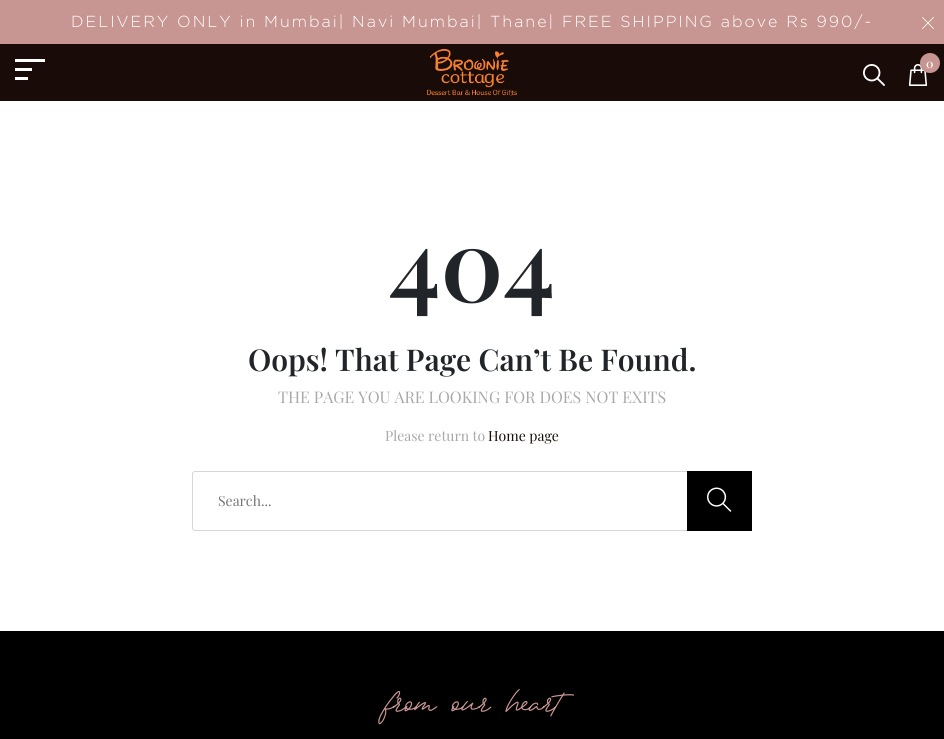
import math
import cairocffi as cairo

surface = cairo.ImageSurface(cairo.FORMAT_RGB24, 944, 739)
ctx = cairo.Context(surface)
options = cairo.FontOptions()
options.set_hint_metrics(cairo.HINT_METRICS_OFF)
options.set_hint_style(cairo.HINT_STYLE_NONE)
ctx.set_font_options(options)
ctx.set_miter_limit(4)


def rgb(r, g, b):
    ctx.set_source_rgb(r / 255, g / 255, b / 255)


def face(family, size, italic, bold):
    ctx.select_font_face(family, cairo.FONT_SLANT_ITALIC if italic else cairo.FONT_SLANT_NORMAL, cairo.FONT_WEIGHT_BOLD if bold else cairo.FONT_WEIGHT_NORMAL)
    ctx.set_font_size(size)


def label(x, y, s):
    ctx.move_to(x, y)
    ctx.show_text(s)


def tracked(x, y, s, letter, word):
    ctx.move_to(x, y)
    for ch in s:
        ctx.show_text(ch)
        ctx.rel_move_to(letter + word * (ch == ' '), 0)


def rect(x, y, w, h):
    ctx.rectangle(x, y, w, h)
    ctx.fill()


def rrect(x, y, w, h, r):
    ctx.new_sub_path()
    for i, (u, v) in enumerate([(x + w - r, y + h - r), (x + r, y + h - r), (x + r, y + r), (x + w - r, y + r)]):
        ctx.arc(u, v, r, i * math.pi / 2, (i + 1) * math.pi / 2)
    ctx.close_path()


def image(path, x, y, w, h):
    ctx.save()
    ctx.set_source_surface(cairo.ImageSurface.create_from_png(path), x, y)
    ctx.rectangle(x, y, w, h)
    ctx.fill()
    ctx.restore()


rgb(255, 255, 255)
ctx.paint()
rgb(199, 150, 146)
rect(0, 0, 944, 44)
face('Gotham Light', 16, 0, 0)
rgb(255, 255, 255)
tracked(71, 27, 'DELIVERY ONLY in Mumbai| Navi Mumbai| Thane| FREE SHIPPING above Rs 990/-', 2, 0)
image('image0.png', 922, 17, 12, 12)
rgb(25, 12, 8)
rect(0, 44, 944, 57)
rgb(255, 255, 255)
rect(15, 59, 30, 3)
rect(15, 68, 17, 3)
rect(15, 77, 13, 3)
image('image1.png', 427, 49, 90, 47)
image('image2.png', 863, 64, 22, 22)
image('image3.png', 908, 64, 20, 22)
rgb(199, 150, 146)
ctx.arc(930, 63, 10, 0, 2 * math.pi)
ctx.fill()
face('Playfair Display Medium', 12, 0, 0)
rgb(255, 255, 255)
label(926, 68, '0')
face('Playfair Display SemiBold', 100, 0, 0)
rgb(33, 37, 41)
label(389, 302, '404')
face('Playfair Display SemiBold', 30, 0, 0)
label(248, 371, 'Oops! That Page Can’t Be Found.')
face('Playfair Display', 16, 0, 0)
rgb(168, 168, 168)
label(278, 403, 'THE PAGE YOU ARE LOOKING FOR DOES NOT EXITS')
face('Playfair Display', 14, 0, 0)
label(385, 441, 'Please return to')
rgb(25, 12, 8)
label(488, 441, 'Home page')
rrect(192.5, 471.5, 559, 59, 2.5)
rgb(214, 214, 214)
ctx.set_line_width(1)
ctx.stroke()
rgb(117, 117, 117)
label(218, 506, 'Search...')
rgb(0, 0, 0)
rect(687, 471, 65, 60)
image('image4.png', 707, 487, 25, 25)
rect(0, 631, 944, 108)
face('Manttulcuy', 36, 0, 0)
rgb(199, 150, 146)
label(385, 711, 'from our heart')
surface.write_to_png('render.png')
